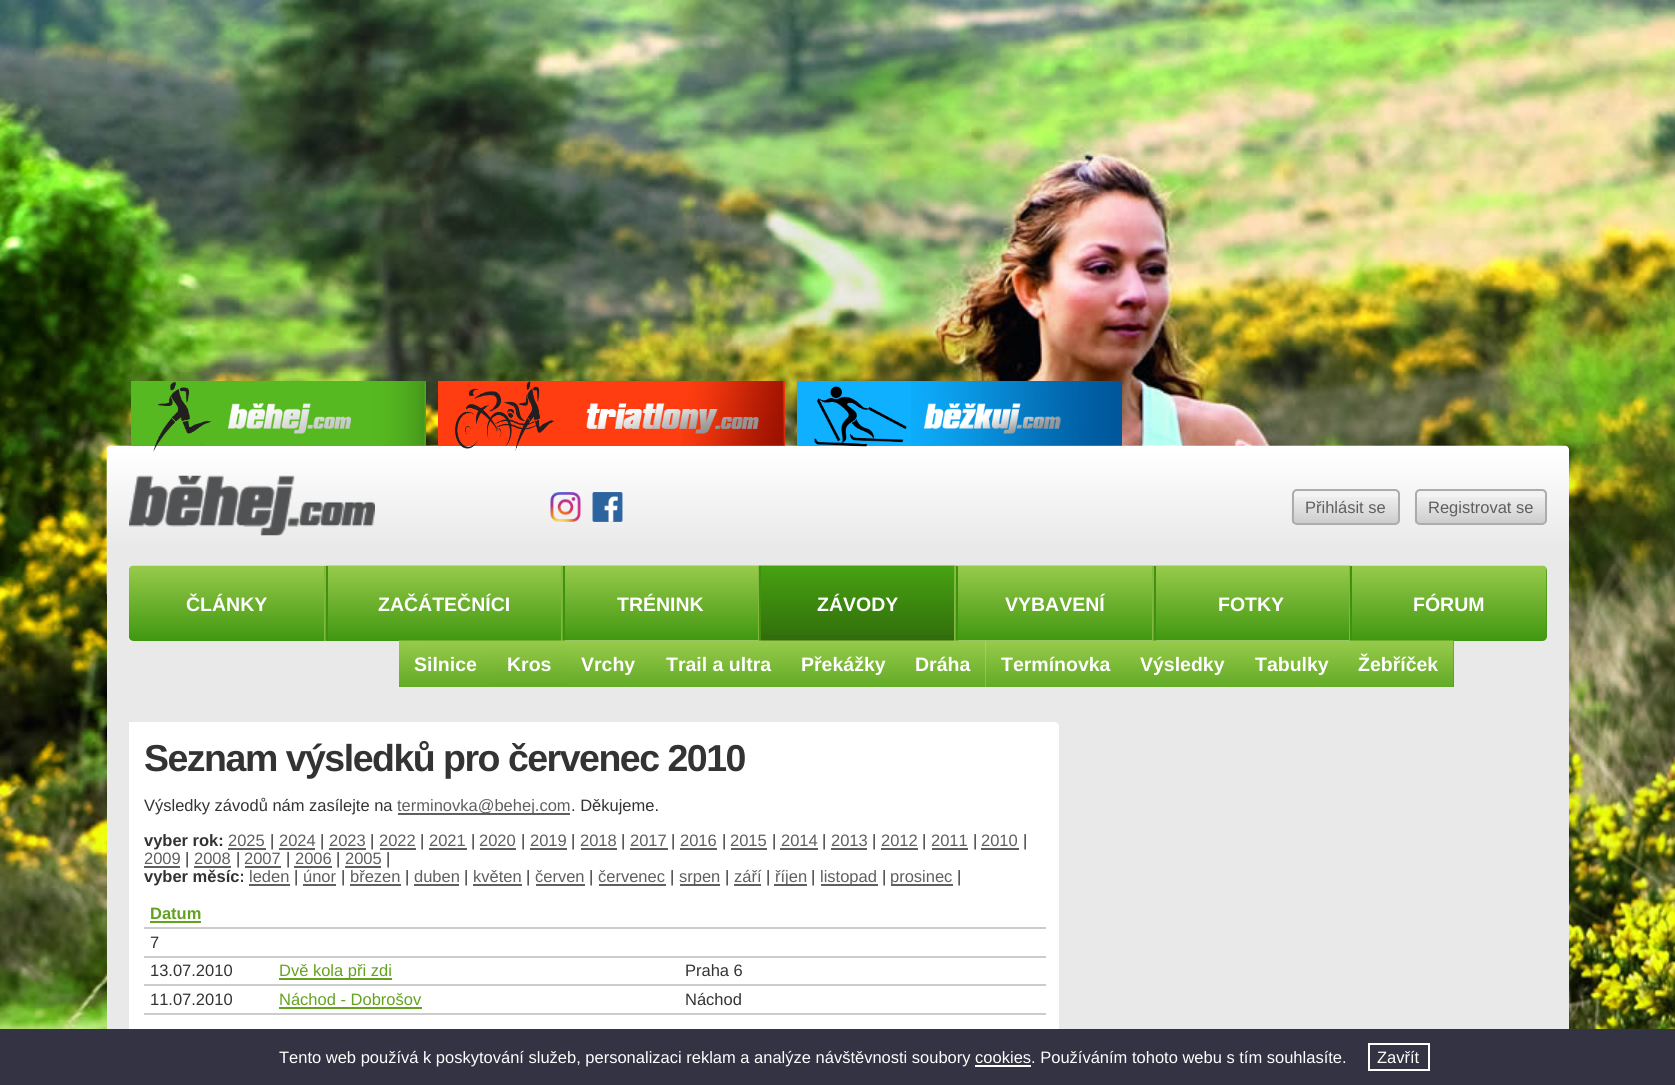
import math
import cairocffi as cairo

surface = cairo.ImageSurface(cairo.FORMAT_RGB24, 1675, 1085)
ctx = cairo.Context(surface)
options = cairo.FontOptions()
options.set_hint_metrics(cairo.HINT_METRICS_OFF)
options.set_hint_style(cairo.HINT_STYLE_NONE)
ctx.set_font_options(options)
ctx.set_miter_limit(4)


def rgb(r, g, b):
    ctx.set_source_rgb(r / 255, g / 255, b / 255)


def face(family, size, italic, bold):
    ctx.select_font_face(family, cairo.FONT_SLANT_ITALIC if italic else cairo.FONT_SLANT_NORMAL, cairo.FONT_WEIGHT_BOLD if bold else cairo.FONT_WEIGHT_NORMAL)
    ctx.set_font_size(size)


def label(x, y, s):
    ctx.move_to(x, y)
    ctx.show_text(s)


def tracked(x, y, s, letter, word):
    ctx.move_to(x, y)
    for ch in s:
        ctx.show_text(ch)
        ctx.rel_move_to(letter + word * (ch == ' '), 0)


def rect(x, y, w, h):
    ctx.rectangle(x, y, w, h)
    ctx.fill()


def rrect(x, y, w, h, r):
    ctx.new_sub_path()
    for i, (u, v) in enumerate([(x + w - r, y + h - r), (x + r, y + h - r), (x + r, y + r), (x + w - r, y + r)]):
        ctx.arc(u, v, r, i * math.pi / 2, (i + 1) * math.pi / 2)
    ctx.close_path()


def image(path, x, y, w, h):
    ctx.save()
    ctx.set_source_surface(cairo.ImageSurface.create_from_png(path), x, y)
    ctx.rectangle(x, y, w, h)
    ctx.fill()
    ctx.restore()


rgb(255, 255, 255)
ctx.paint()
image('image0.png', 0, 0, 1675, 1029)
rgb(233, 233, 233)
rrect(107, 446, 1462, 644, 5)
ctx.fill()
image('image10.png', 106, 445, 1463, 149)
rgb(86, 185, 33)
rect(131, 381, 295, 65)
image('image1.png', 201, 381, 225, 65)
image('image2.png', 153, 382, 59, 70)
image('image3.png', 228, 403, 123, 31)
rgb(255, 61, 16)
rect(438, 381, 347, 65)
image('image4.png', 681, 381, 104, 65)
image('image5.png', 455, 381, 99, 70)
image('image6.png', 586, 403, 173, 31)
rgb(14, 176, 255)
rect(797, 381, 325, 65)
image('image7.png', 911, 381, 211, 65)
image('image8.png', 814, 386, 93, 61)
image('image9.png', 924, 403, 137, 31)
image('image11.png', 129, 475, 246, 61)
image('image12.png', 550, 492, 31, 30)
image('image13.png', 592, 492, 31, 30)
rgb(243, 243, 243)
rrect(1292, 489, 108, 36, 5)
ctx.fill()
image('image14.png', 1291, 497, 109, 27)
rrect(1293, 490, 106, 34, 4)
rgb(172, 172, 172)
ctx.stroke()
face('Liberation Sans', 16.5, 0, 0)
rgb(95, 95, 95)
label(1305, 513, 'Přihlásit se')
rgb(243, 243, 243)
rrect(1415, 489, 132, 36, 5)
ctx.fill()
image('image15.png', 1414, 497, 133, 27)
rrect(1416, 490, 130, 34, 4)
rgb(172, 172, 172)
ctx.stroke()
rgb(95, 95, 95)
label(1428, 513, 'Registrovat se')
rgb(64, 151, 16)
ctx.new_path()
ctx.move_to(134, 566)
ctx.line_to(326, 566)
ctx.line_to(326, 641)
ctx.line_to(134, 641)
ctx.curve_to(131, 641, 129, 639, 129, 636)
ctx.line_to(129, 571)
ctx.curve_to(129, 568, 131, 566, 134, 566)
ctx.close_path()
ctx.fill()
image('image16.png', 129, 565, 197, 76)
rgb(130, 184, 61)
rect(324, 566, 2, 75)
face('Liberation Sans', 19.5, 0, 1)
rgb(255, 255, 255)
label(186, 611, 'ČLÁNKY')
rgb(64, 151, 16)
rect(328, 640, 233, 1)
image('image17.png', 325, 565, 238, 76)
rgb(130, 184, 61)
rect(561, 566, 2, 75)
rgb(62, 146, 15)
rect(326, 566, 2, 75)
rgb(255, 255, 255)
label(378, 611, 'ZAČÁTEČNÍCI')
rgb(49, 109, 12)
rect(761, 635, 193, 6)
image('image18.png', 759, 565, 197, 70)
rgb(130, 184, 61)
rect(954, 566, 2, 75)
rgb(62, 146, 15)
rect(759, 566, 2, 75)
rgb(255, 255, 255)
label(817, 611, 'ZÁVODY')
image('image19.png', 399, 640, 93, 47)
label(414, 671, 'Silnice')
image('image29.png', 562, 565, 197, 76)
rgb(62, 146, 15)
rect(563, 566, 2, 75)
image('image20.png', 492, 640, 75, 47)
rgb(255, 255, 255)
label(507, 671, 'Kros')
image('image21.png', 567, 640, 84, 47)
label(581, 671, 'Vrchy')
rgb(130, 184, 61)
rect(758, 566, 1, 75)
image('image22.png', 651, 640, 135, 47)
rgb(255, 255, 255)
label(666, 671, 'Trail a ultra')
image('image23.png', 786, 640, 114, 47)
label(801, 671, 'Překážky')
image('image30.png', 955, 565, 199, 76)
rgb(62, 146, 15)
rect(956, 566, 2, 75)
image('image24.png', 900, 640, 86, 47)
rgb(255, 255, 255)
label(915, 671, 'Dráha')
image('image25.png', 985, 640, 140, 47)
label(1001, 671, 'Termínovka')
rgb(130, 184, 61)
rect(1152, 566, 2, 75)
image('image29.png', 1153, 565, 197, 76)
rgb(62, 146, 15)
rect(1154, 566, 2, 75)
image('image26.png', 1125, 640, 114, 47)
rgb(255, 255, 255)
label(1140, 671, 'Výsledky')
image('image27.png', 1239, 640, 105, 47)
label(1255, 671, 'Tabulky')
rgb(64, 151, 16)
rect(1453, 641, 1, 46)
rgb(130, 184, 61)
rect(1349, 566, 1, 75)
rgb(64, 151, 16)
ctx.new_path()
ctx.move_to(1350, 566)
ctx.line_to(1542, 566)
ctx.curve_to(1545, 566, 1547, 568, 1547, 571)
ctx.line_to(1547, 636)
ctx.curve_to(1547, 639, 1545, 641, 1542, 641)
ctx.line_to(1350, 641)
ctx.close_path()
ctx.fill()
image('image31.png', 1350, 565, 197, 76)
rgb(62, 146, 15)
rect(1350, 566, 2, 75)
image('image28.png', 1344, 640, 110, 47)
rgb(255, 255, 255)
label(1358, 671, 'Žebříček')
label(617, 611, 'TRÉNINK')
label(1005, 611, 'VYBAVENÍ')
label(1218, 611, 'FOTKY')
label(1413, 611, 'FÓRUM')
ctx.new_path()
ctx.move_to(129, 722)
ctx.line_to(1054, 722)
ctx.curve_to(1057, 722, 1059, 724, 1059, 727)
ctx.line_to(1059, 1085)
ctx.curve_to(1059, 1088, 1057, 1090, 1054, 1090)
ctx.line_to(134, 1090)
ctx.curve_to(131, 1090, 129, 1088, 129, 1085)
ctx.close_path()
ctx.fill()
face('Liberation Sans', 37.5, 0, 1)
rgb(51, 51, 51)
tracked(144, 771, 'Seznam výsledků pro červenec 2010', -1.5, 0)
face('Liberation Sans', 16.5, 0, 0)
label(144, 811, 'Výsledky závodů nám zasílejte na')
rgb(95, 95, 95)
rect(398, 813, 172, 2)
label(397, 811, 'terminovka@behej.com')
rgb(51, 51, 51)
label(571, 811, '. Děkujeme.')
face('Liberation Sans', 16.5, 0, 1)
label(144, 846, 'vyber rok:')
face('Liberation Sans', 16.5, 0, 0)
rgb(95, 95, 95)
label(228, 846, '2025')
rect(228, 848, 38, 2)
rgb(51, 51, 51)
label(270, 846, '|')
rgb(95, 95, 95)
label(279, 846, '2024')
rect(279, 848, 36, 2)
rgb(51, 51, 51)
label(320, 846, '|')
rgb(95, 95, 95)
label(329, 846, '2023')
rect(329, 848, 37, 2)
rgb(51, 51, 51)
label(370, 846, '|')
rgb(95, 95, 95)
label(379, 846, '2022')
rect(380, 848, 36, 2)
rgb(51, 51, 51)
label(420, 846, '|')
rgb(95, 95, 95)
label(429, 846, '2021')
rect(429, 848, 38, 2)
rgb(51, 51, 51)
label(471, 846, '|')
rgb(95, 95, 95)
label(479, 846, '2020')
rect(480, 848, 36, 2)
rgb(51, 51, 51)
label(521, 846, '|')
rgb(95, 95, 95)
label(530, 846, '2019')
rect(530, 848, 37, 2)
rgb(51, 51, 51)
label(571, 846, '|')
rgb(95, 95, 95)
label(580, 846, '2018')
rect(581, 848, 36, 2)
rgb(51, 51, 51)
label(621, 846, '|')
rgb(95, 95, 95)
label(630, 846, '2017')
rect(630, 848, 38, 2)
rgb(51, 51, 51)
label(671, 846, '|')
rgb(95, 95, 95)
label(680, 846, '2016')
rect(680, 848, 37, 2)
rgb(51, 51, 51)
label(722, 846, '|')
rgb(95, 95, 95)
label(730, 846, '2015')
rect(731, 848, 36, 2)
rgb(51, 51, 51)
label(772, 846, '|')
rgb(95, 95, 95)
label(781, 846, '2014')
rect(780, 848, 38, 2)
rgb(51, 51, 51)
label(822, 846, '|')
rgb(95, 95, 95)
label(831, 846, '2013')
rect(831, 848, 36, 2)
rgb(51, 51, 51)
label(872, 846, '|')
rgb(95, 95, 95)
label(881, 846, '2012')
rect(881, 848, 37, 2)
rgb(51, 51, 51)
label(922, 846, '|')
rgb(95, 95, 95)
label(931, 846, '2011')
rect(932, 848, 36, 2)
rgb(51, 51, 51)
label(973, 846, '|')
rgb(95, 95, 95)
label(981, 846, '2010')
rect(981, 848, 38, 2)
rgb(51, 51, 51)
label(1023, 846, '|')
rgb(95, 95, 95)
label(144, 864, '2009')
rect(144, 866, 36, 2)
rgb(51, 51, 51)
label(185, 864, '|')
rgb(95, 95, 95)
label(194, 864, '2008')
rect(194, 866, 37, 2)
rgb(51, 51, 51)
label(236, 864, '|')
rgb(95, 95, 95)
label(244, 864, '2007')
rect(245, 866, 36, 2)
rgb(51, 51, 51)
label(286, 864, '|')
rgb(95, 95, 95)
label(295, 864, '2006')
rect(294, 866, 38, 2)
rgb(51, 51, 51)
label(336, 864, '|')
rgb(95, 95, 95)
label(345, 864, '2005')
rect(345, 866, 36, 2)
rgb(51, 51, 51)
label(386, 864, '|')
face('Liberation Sans', 16.5, 0, 1)
label(144, 882, 'vyber měsíc:')
face('Liberation Sans', 16.5, 0, 0)
rgb(95, 95, 95)
label(249, 882, 'leden')
rect(249, 884, 41, 2)
rgb(51, 51, 51)
label(294, 882, '|')
rgb(95, 95, 95)
label(303, 882, 'únor')
rect(303, 884, 33, 2)
rgb(51, 51, 51)
label(341, 882, '|')
rgb(95, 95, 95)
label(350, 882, 'březen')
rect(350, 884, 51, 2)
rgb(51, 51, 51)
label(405, 882, '|')
rgb(95, 95, 95)
label(414, 882, 'duben')
rect(414, 884, 45, 2)
rgb(51, 51, 51)
label(464, 882, '|')
rgb(95, 95, 95)
label(473, 882, 'květen')
rect(473, 884, 49, 2)
rgb(51, 51, 51)
label(526, 882, '|')
rgb(95, 95, 95)
label(535, 882, 'červen')
rect(536, 884, 49, 2)
rgb(51, 51, 51)
label(589, 882, '|')
rgb(95, 95, 95)
label(598, 882, 'červenec')
rect(599, 884, 67, 2)
rgb(51, 51, 51)
label(670, 882, '|')
rgb(95, 95, 95)
rect(680, 884, 40, 2)
label(679, 882, 'srpen')
rgb(51, 51, 51)
label(725, 882, '|')
rgb(95, 95, 95)
label(734, 882, 'září')
rect(734, 884, 27, 2)
rgb(51, 51, 51)
label(766, 882, '|')
rgb(95, 95, 95)
rect(774, 884, 33, 2)
label(775, 882, 'říjen')
rgb(51, 51, 51)
label(811, 882, '|')
rgb(95, 95, 95)
rect(821, 884, 57, 2)
label(820, 882, 'listopad')
rgb(51, 51, 51)
label(882, 882, '|')
rgb(95, 95, 95)
rect(891, 884, 62, 2)
label(890, 882, 'prosinec')
rgb(51, 51, 51)
label(957, 882, '|')
face('Liberation Sans', 16.5, 0, 1)
rgb(99, 162, 31)
label(150, 919, 'Datum')
rect(150, 921, 51, 2)
rgb(204, 204, 204)
rect(144, 927, 902, 2)
face('Liberation Sans', 16.5, 0, 0)
rgb(51, 51, 51)
label(150, 948, '7')
label(150, 976, '13.07.2010')
rgb(99, 162, 31)
rect(279, 978, 113, 2)
label(279, 976, 'Dvě kola při zdi')
rgb(204, 204, 204)
rect(144, 956, 902, 2)
rgb(51, 51, 51)
label(685, 976, 'Praha 6')
label(150, 1005, '11.07.2010')
rgb(99, 162, 31)
label(279, 1005, 'Náchod - Dobrošov')
rect(279, 1007, 143, 2)
rgb(204, 204, 204)
rect(144, 984, 902, 2)
rgb(51, 51, 51)
label(685, 1005, 'Náchod')
rgb(204, 204, 204)
rect(144, 1013, 902, 2)
rgb(51, 51, 68)
rect(0, 1029, 1675, 56)
rgb(255, 255, 255)
label(279, 1063, 'Tento web používá k poskytování služeb, personalizaci reklam a analýze návštěvnosti soubory cookies. Používáním tohoto webu s tím souhlasíte.')
ctx.rectangle(1369, 1044, 60, 26)
ctx.stroke()
label(1377, 1063, 'Zavřít')
rect(975, 1065, 56, 2)
surface.write_to_png('render.png')
